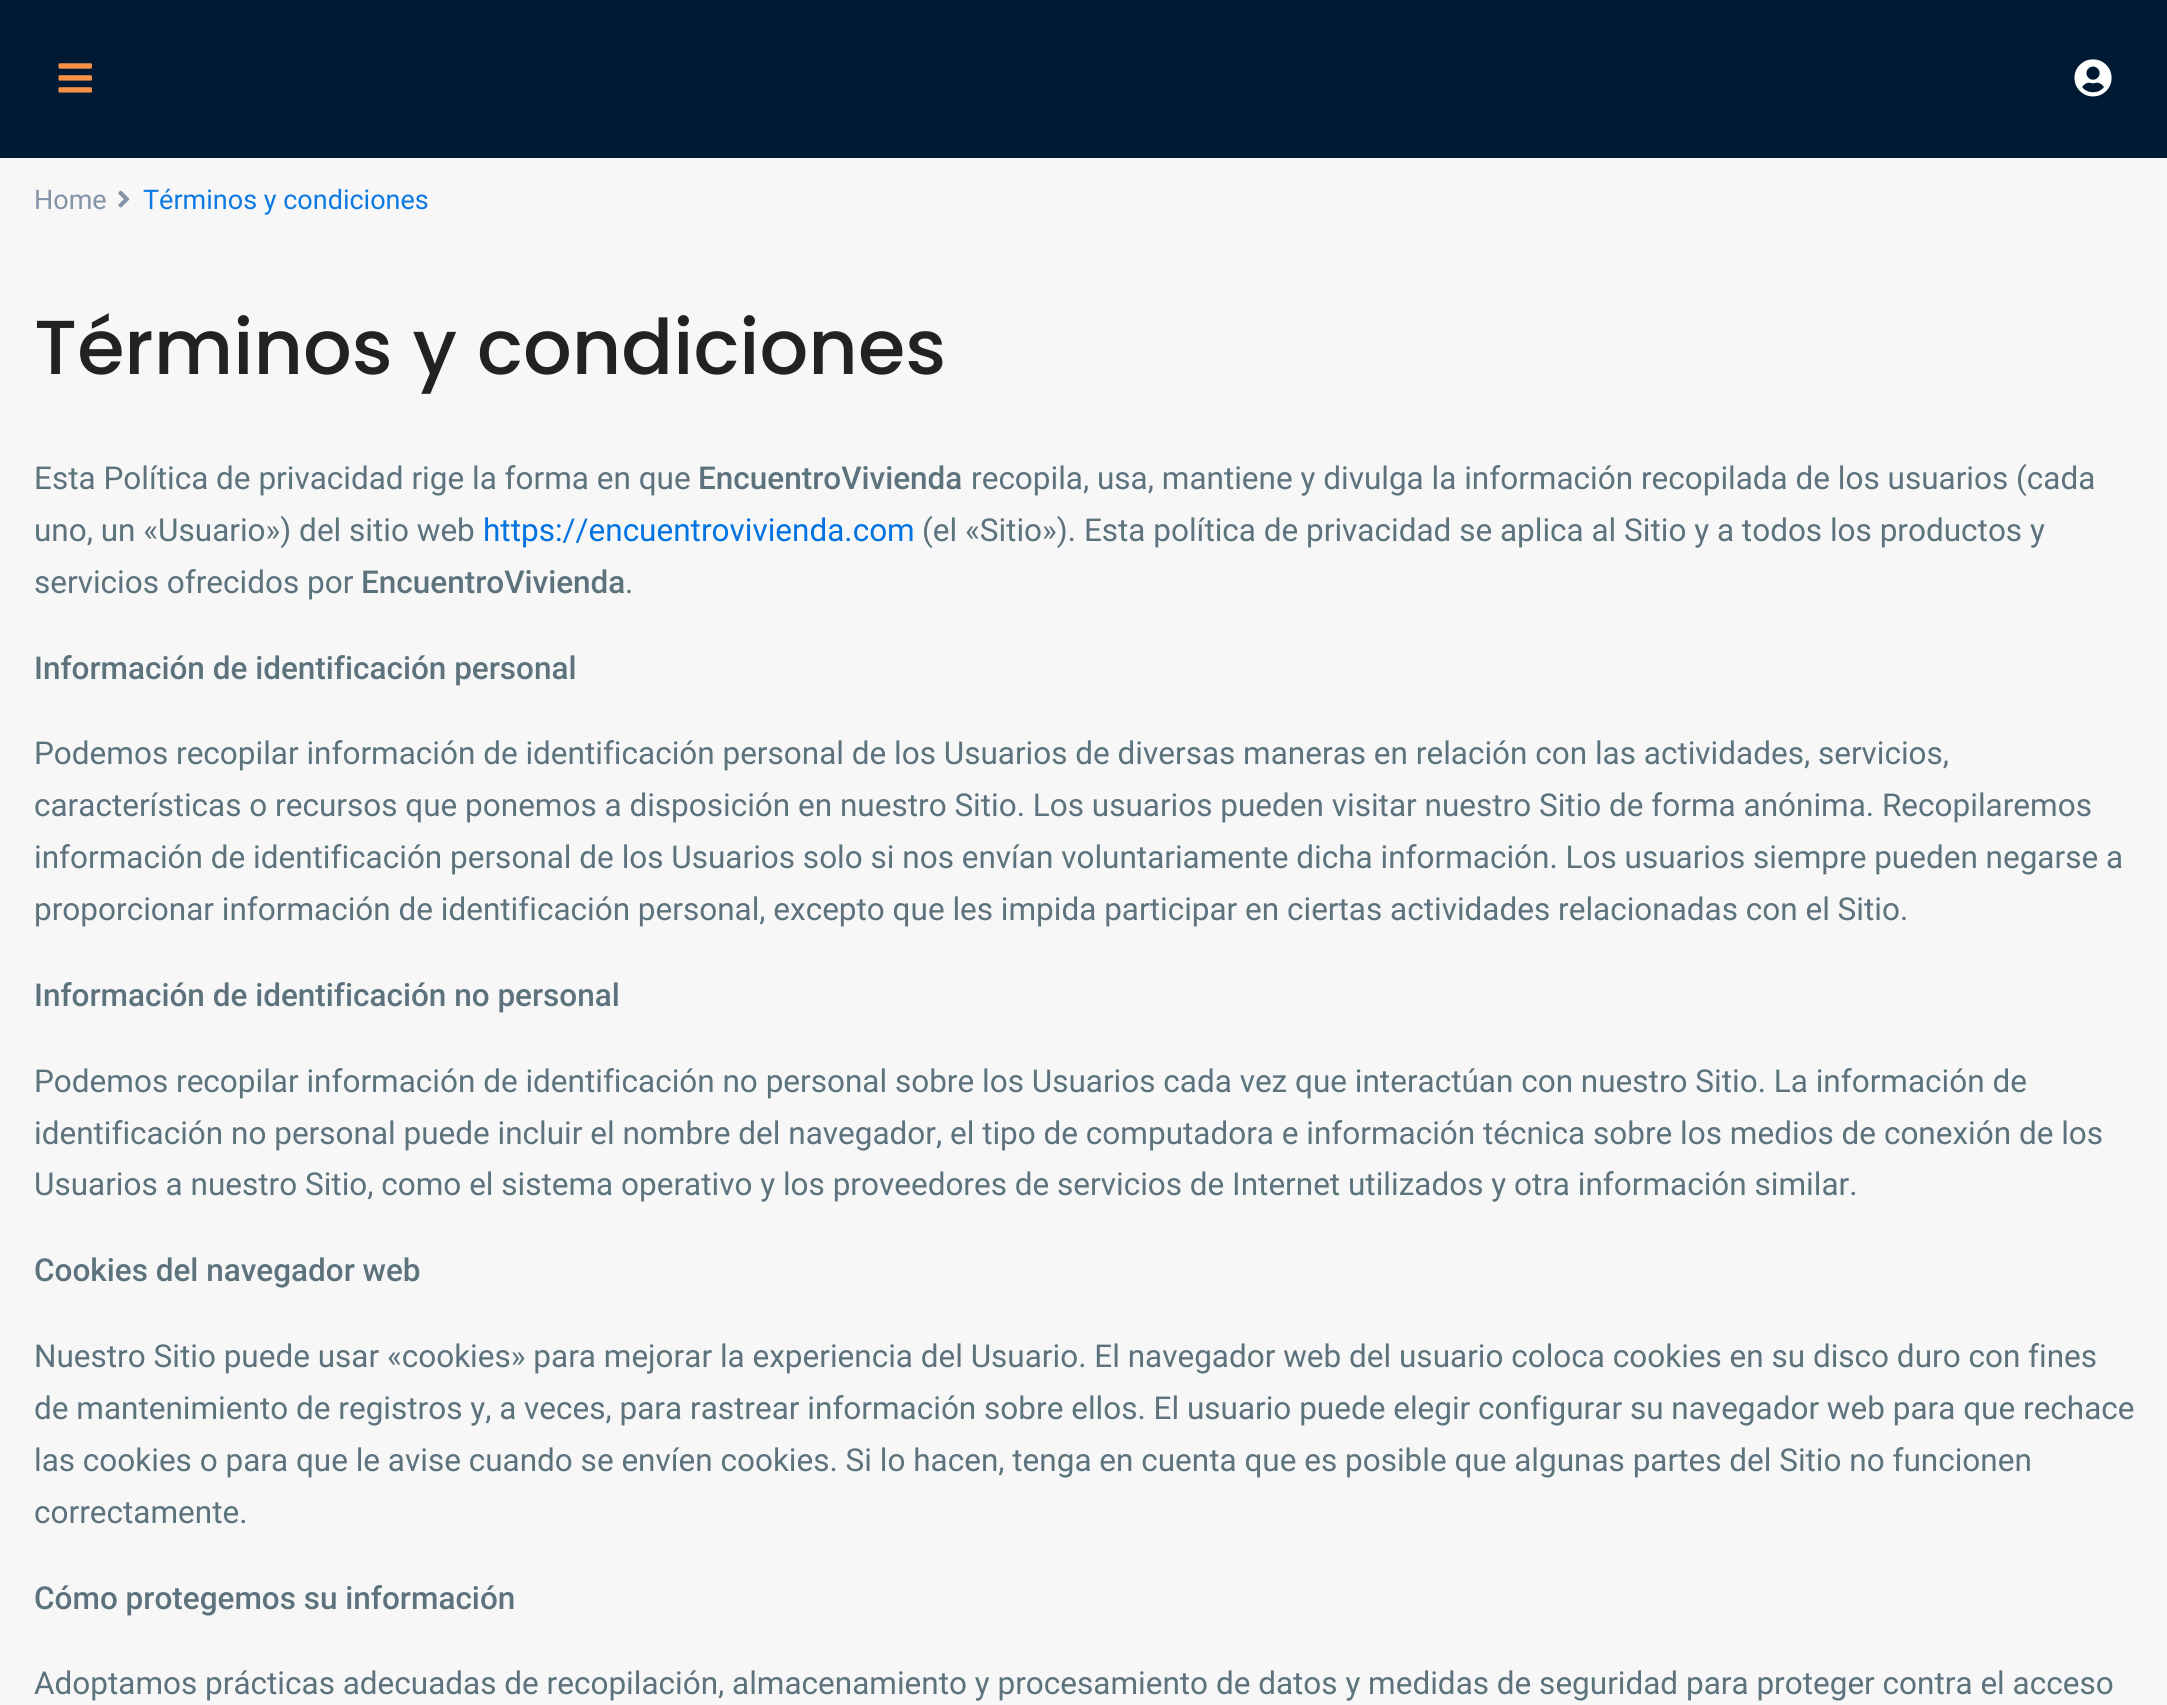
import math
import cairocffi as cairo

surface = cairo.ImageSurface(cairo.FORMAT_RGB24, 2167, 1705)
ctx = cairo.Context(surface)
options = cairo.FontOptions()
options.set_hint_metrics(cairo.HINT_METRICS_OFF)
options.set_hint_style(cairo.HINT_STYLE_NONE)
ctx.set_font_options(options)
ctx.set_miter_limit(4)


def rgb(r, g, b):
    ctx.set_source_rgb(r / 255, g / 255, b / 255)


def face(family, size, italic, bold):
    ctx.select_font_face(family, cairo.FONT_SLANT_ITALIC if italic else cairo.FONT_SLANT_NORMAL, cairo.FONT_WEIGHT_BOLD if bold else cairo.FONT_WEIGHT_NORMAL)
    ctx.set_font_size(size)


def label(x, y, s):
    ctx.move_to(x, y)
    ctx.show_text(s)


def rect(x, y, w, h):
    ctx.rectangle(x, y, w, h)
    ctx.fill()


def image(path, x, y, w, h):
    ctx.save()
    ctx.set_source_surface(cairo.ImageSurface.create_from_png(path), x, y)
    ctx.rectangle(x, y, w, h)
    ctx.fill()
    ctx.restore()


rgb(247, 247, 247)
ctx.paint()
rgb(0, 26, 51)
rect(0, 0, 2167, 158)
image('image0.png', 58, 63, 34, 30)
image('image1.png', 2074, 59, 38, 38)
face('Roboto', 27, 0, 0)
rgb(133, 147, 169)
label(34, 209, 'Home')
image('image2.png', 118, 190, 12, 18)
rgb(13, 122, 227)
label(143, 209, 'Términos y condiciones')
face('Poppins Medium', 76.5, 0, 0)
rgb(34, 34, 34)
label(34, 374, 'Términos y condiciones')
face('Roboto', 31.5, 0, 0)
rgb(92, 114, 125)
label(34, 489, 'Esta Política de privacidad rige la forma en que')
face('Roboto Medium', 31.5, 0, 0)
label(698, 489, 'EncuentroVivienda')
face('Roboto', 31.5, 0, 0)
label(971, 489, 'recopila, usa, mantiene y divulga la información recopilada de los usuarios (cada')
label(34, 541, 'uno, un «Usuario») del sitio web')
rgb(0, 115, 225)
label(483, 541, 'https://encuentrovivienda.com')
rgb(92, 114, 125)
label(922, 541, '(el «Sitio»). Esta política de privacidad se aplica al Sitio y a todos los productos y')
label(34, 593, 'servicios ofrecidos por')
face('Roboto Medium', 31.5, 0, 0)
label(361, 593, 'EncuentroVivienda')
face('Roboto', 31.5, 0, 0)
label(625, 593, '.')
face('Roboto Medium', 31.5, 0, 0)
label(34, 679, 'Información de identificación personal')
face('Roboto', 31.5, 0, 0)
label(34, 764, 'Podemos recopilar información de identificación personal de los Usuarios de diversas maneras en relación con las actividades, servicios,')
label(34, 816, 'características o recursos que ponemos a disposición en nuestro Sitio. Los usuarios pueden visitar nuestro Sitio de forma anónima. Recopilaremos')
label(34, 868, 'información de identificación personal de los Usuarios solo si nos envían voluntariamente dicha información. Los usuarios siempre pueden negarse a')
label(34, 920, 'proporcionar información de identificación personal, excepto que les impida participar en ciertas actividades relacionadas con el Sitio.')
face('Roboto Medium', 31.5, 0, 0)
label(34, 1006, 'Información de identificación no personal')
face('Roboto', 31.5, 0, 0)
label(34, 1092, 'Podemos recopilar información de identificación no personal sobre los Usuarios cada vez que interactúan con nuestro Sitio. La información de')
label(34, 1144, 'identificación no personal puede incluir el nombre del navegador, el tipo de computadora e información técnica sobre los medios de conexión de los')
label(34, 1195, 'Usuarios a nuestro Sitio, como el sistema operativo y los proveedores de servicios de Internet utilizados y otra información similar.')
face('Roboto Medium', 31.5, 0, 0)
label(34, 1281, 'Cookies del navegador web')
face('Roboto', 31.5, 0, 0)
label(34, 1367, 'Nuestro Sitio puede usar «cookies» para mejorar la experiencia del Usuario. El navegador web del usuario coloca cookies en su disco duro con fines')
label(34, 1419, 'de mantenimiento de registros y, a veces, para rastrear información sobre ellos. El usuario puede elegir configurar su navegador web para que rechace')
label(34, 1471, 'las cookies o para que le avise cuando se envíen cookies. Si lo hacen, tenga en cuenta que es posible que algunas partes del Sitio no funcionen')
label(34, 1523, 'correctamente.')
face('Roboto Medium', 31.5, 0, 0)
label(34, 1609, 'Cómo protegemos su información')
face('Roboto', 31.5, 0, 0)
label(34, 1694, 'Adoptamos prácticas adecuadas de recopilación, almacenamiento y procesamiento de datos y medidas de seguridad para proteger contra el acceso')
surface.write_to_png('render.png')
